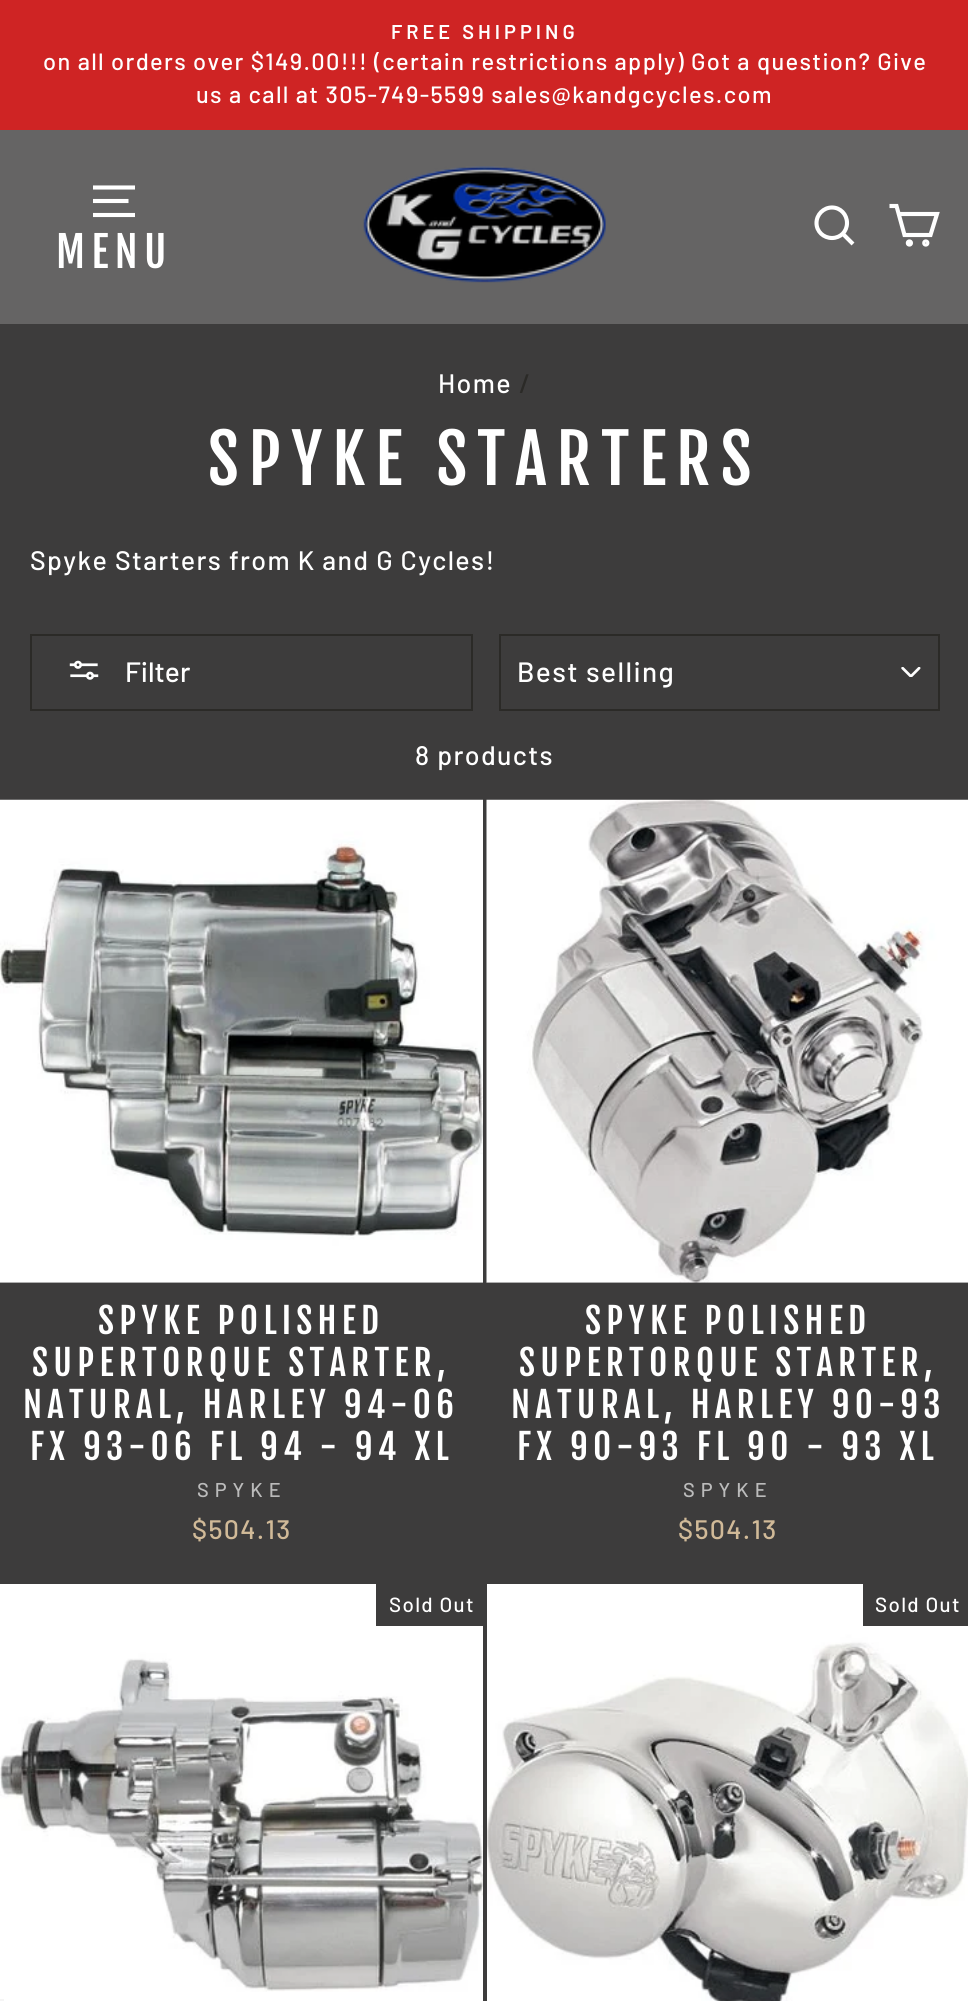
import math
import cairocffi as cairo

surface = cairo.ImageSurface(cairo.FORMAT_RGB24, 968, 2001)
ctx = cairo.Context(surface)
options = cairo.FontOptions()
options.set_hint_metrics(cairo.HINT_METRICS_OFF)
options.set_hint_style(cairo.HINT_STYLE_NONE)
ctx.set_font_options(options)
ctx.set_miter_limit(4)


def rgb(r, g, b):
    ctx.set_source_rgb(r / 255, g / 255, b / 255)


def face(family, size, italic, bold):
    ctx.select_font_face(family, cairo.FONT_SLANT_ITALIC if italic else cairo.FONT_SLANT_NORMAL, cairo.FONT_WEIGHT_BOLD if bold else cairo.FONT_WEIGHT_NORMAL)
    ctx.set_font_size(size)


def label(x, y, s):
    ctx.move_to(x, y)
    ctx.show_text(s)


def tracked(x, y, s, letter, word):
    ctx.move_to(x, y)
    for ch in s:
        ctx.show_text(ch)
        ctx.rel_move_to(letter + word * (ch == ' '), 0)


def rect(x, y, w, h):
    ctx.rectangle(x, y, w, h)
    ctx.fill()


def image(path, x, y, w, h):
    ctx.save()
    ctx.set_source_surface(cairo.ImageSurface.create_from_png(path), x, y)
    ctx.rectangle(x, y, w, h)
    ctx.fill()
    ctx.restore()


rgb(61, 60, 60)
ctx.paint()
rgb(207, 36, 36)
rect(0, 0, 968, 130)
face('Barlow SemiBold', 20, 0, 0)
rgb(255, 255, 255)
tracked(391, 39, 'FREE SHIPPING', 4, 0)
face('Barlow Medium', 23.6, 0, 0)
tracked(43, 70, 'on all orders over $149.00!!! (certain restrictions apply) Got a question? Give', 1.35, 0)
tracked(196, 103, 'us a call at 305-749-5599 sales@kandgcycles.com', 1.35, 0)
rgb(101, 100, 100)
rect(0, 130, 968, 194)
image('image0.png', 363, 166, 243, 117)
ctx.new_path()
ctx.move_to(847, 223)
ctx.curve_to(847, 231.5, 840.5, 238, 832, 238)
ctx.curve_to(823.5, 238, 816.5, 231.5, 816.5, 223)
ctx.curve_to(816.5, 214.5, 823.5, 207.5, 832, 207.5)
ctx.curve_to(840.5, 207.5, 847, 214.5, 847, 223)
ctx.close_path()
ctx.move_to(853, 244)
ctx.line_to(843, 234)
rgb(255, 255, 255)
ctx.set_line_width(4.1)
ctx.stroke()
ctx.new_path()
ctx.move_to(898.5, 214)
ctx.line_to(937, 214)
ctx.line_to(930.5, 235)
ctx.line_to(904.5, 235)
ctx.line_to(896.5, 206)
ctx.line_to(889.5, 206)
ctx.stroke()
ctx.arc(909.4, 243, 1.6, 0, 2 * math.pi)
ctx.fill_preserve()
ctx.stroke()
ctx.arc(925.8, 243, 1.6, 0, 2 * math.pi)
ctx.stroke()
ctx.new_path()
ctx.move_to(93, 187.5)
ctx.line_to(135, 187.5)
ctx.move_to(93, 201)
ctx.line_to(128.5, 201)
ctx.move_to(93, 215)
ctx.line_to(135, 215)
ctx.stroke()
face('Fjalla One', 42, 0, 0)
tracked(56, 268, 'MENU', 6.5, 0)
face('Barlow Medium', 26.75, 0, 0)
tracked(438, 393, 'Home', 1.35, 0)
rgb(43, 42, 39)
tracked(519, 393, '/', 1.35, 0)
face('Fjalla One', 67, 0, 0)
rgb(255, 255, 255)
tracked(208, 485, 'SPYKE STARTERS', 10, 0)
face('Barlow Medium', 26.75, 0, 0)
tracked(30, 570, 'Spyke Starters from K and G Cycles!', 1.35, 0)
ctx.rectangle(31, 635, 441, 75)
rgb(43, 42, 39)
ctx.set_line_width(2)
ctx.stroke()
image('image1.png', 69, 660, 30, 20)
face('Barlow Medium', 28, 0, 0)
rgb(255, 255, 255)
label(125, 682, 'Filter')
image('image2.png', 901, 667, 20, 10)
ctx.rectangle(500, 635, 439, 75)
rgb(43, 42, 39)
ctx.stroke()
rgb(255, 255, 255)
tracked(517, 682, 'Best selling', 1.4, 0)
face('Barlow Medium', 26.75, 0, 0)
tracked(415, 765, '8 products', 1.35, 0)
rgb(0, 0, 0)
rect(0, 1282, 483, 1)
image('image3.png', 0, 799, 483, 484)
face('Fjalla One', 35, 0, 0)
rgb(255, 255, 255)
tracked(98, 1334, 'SPYKE POLISHED', 5.25, 0)
tracked(32, 1376, 'SUPERTORQUE STARTER,', 5.25, 0)
tracked(23, 1418, 'NATURAL, HARLEY 94-06', 5.25, 0)
tracked(30, 1460, 'FX 93-06 FL 94 - 94 XL', 5.25, 0)
face('Barlow Medium', 20, 0, 0)
rgb(187, 187, 187)
tracked(197, 1497, 'SPYKE', 6, 0)
face('Barlow Medium', 26.75, 0, 0)
rgb(209, 186, 152)
tracked(192, 1539, '$504.13', 1.35, 0)
rgb(0, 0, 0)
rect(487, 1282, 481, 1)
image('image4.png', 486, 799, 482, 484)
face('Fjalla One', 35, 0, 0)
rgb(255, 255, 255)
tracked(585, 1334, 'SPYKE POLISHED', 5.25, 0)
tracked(519, 1376, 'SUPERTORQUE STARTER,', 5.25, 0)
tracked(511, 1418, 'NATURAL, HARLEY 90-93', 5.25, 0)
tracked(517, 1460, 'FX 90-93 FL 90 - 93 XL', 5.25, 0)
face('Barlow Medium', 20, 0, 0)
rgb(187, 187, 187)
tracked(683, 1497, 'SPYKE', 6, 0)
face('Barlow Medium', 26.75, 0, 0)
rgb(209, 186, 152)
tracked(678, 1539, '$504.13', 1.35, 0)
image('image5.png', 0, 1584, 483, 417)
rgb(61, 60, 60)
rect(376, 1584, 107, 42)
face('Barlow Medium', 20.5, 0, 0)
rgb(255, 255, 255)
tracked(389, 1612, 'Sold Out', 1.35, 0)
image('image6.png', 487, 1584, 481, 417)
rgb(61, 60, 60)
rect(863, 1584, 105, 42)
rgb(255, 255, 255)
tracked(875, 1612, 'Sold Out', 1.35, 0)
rgb(245, 245, 245)
rect(0, 1999, 4, 2)
surface.write_to_png('render.png')
